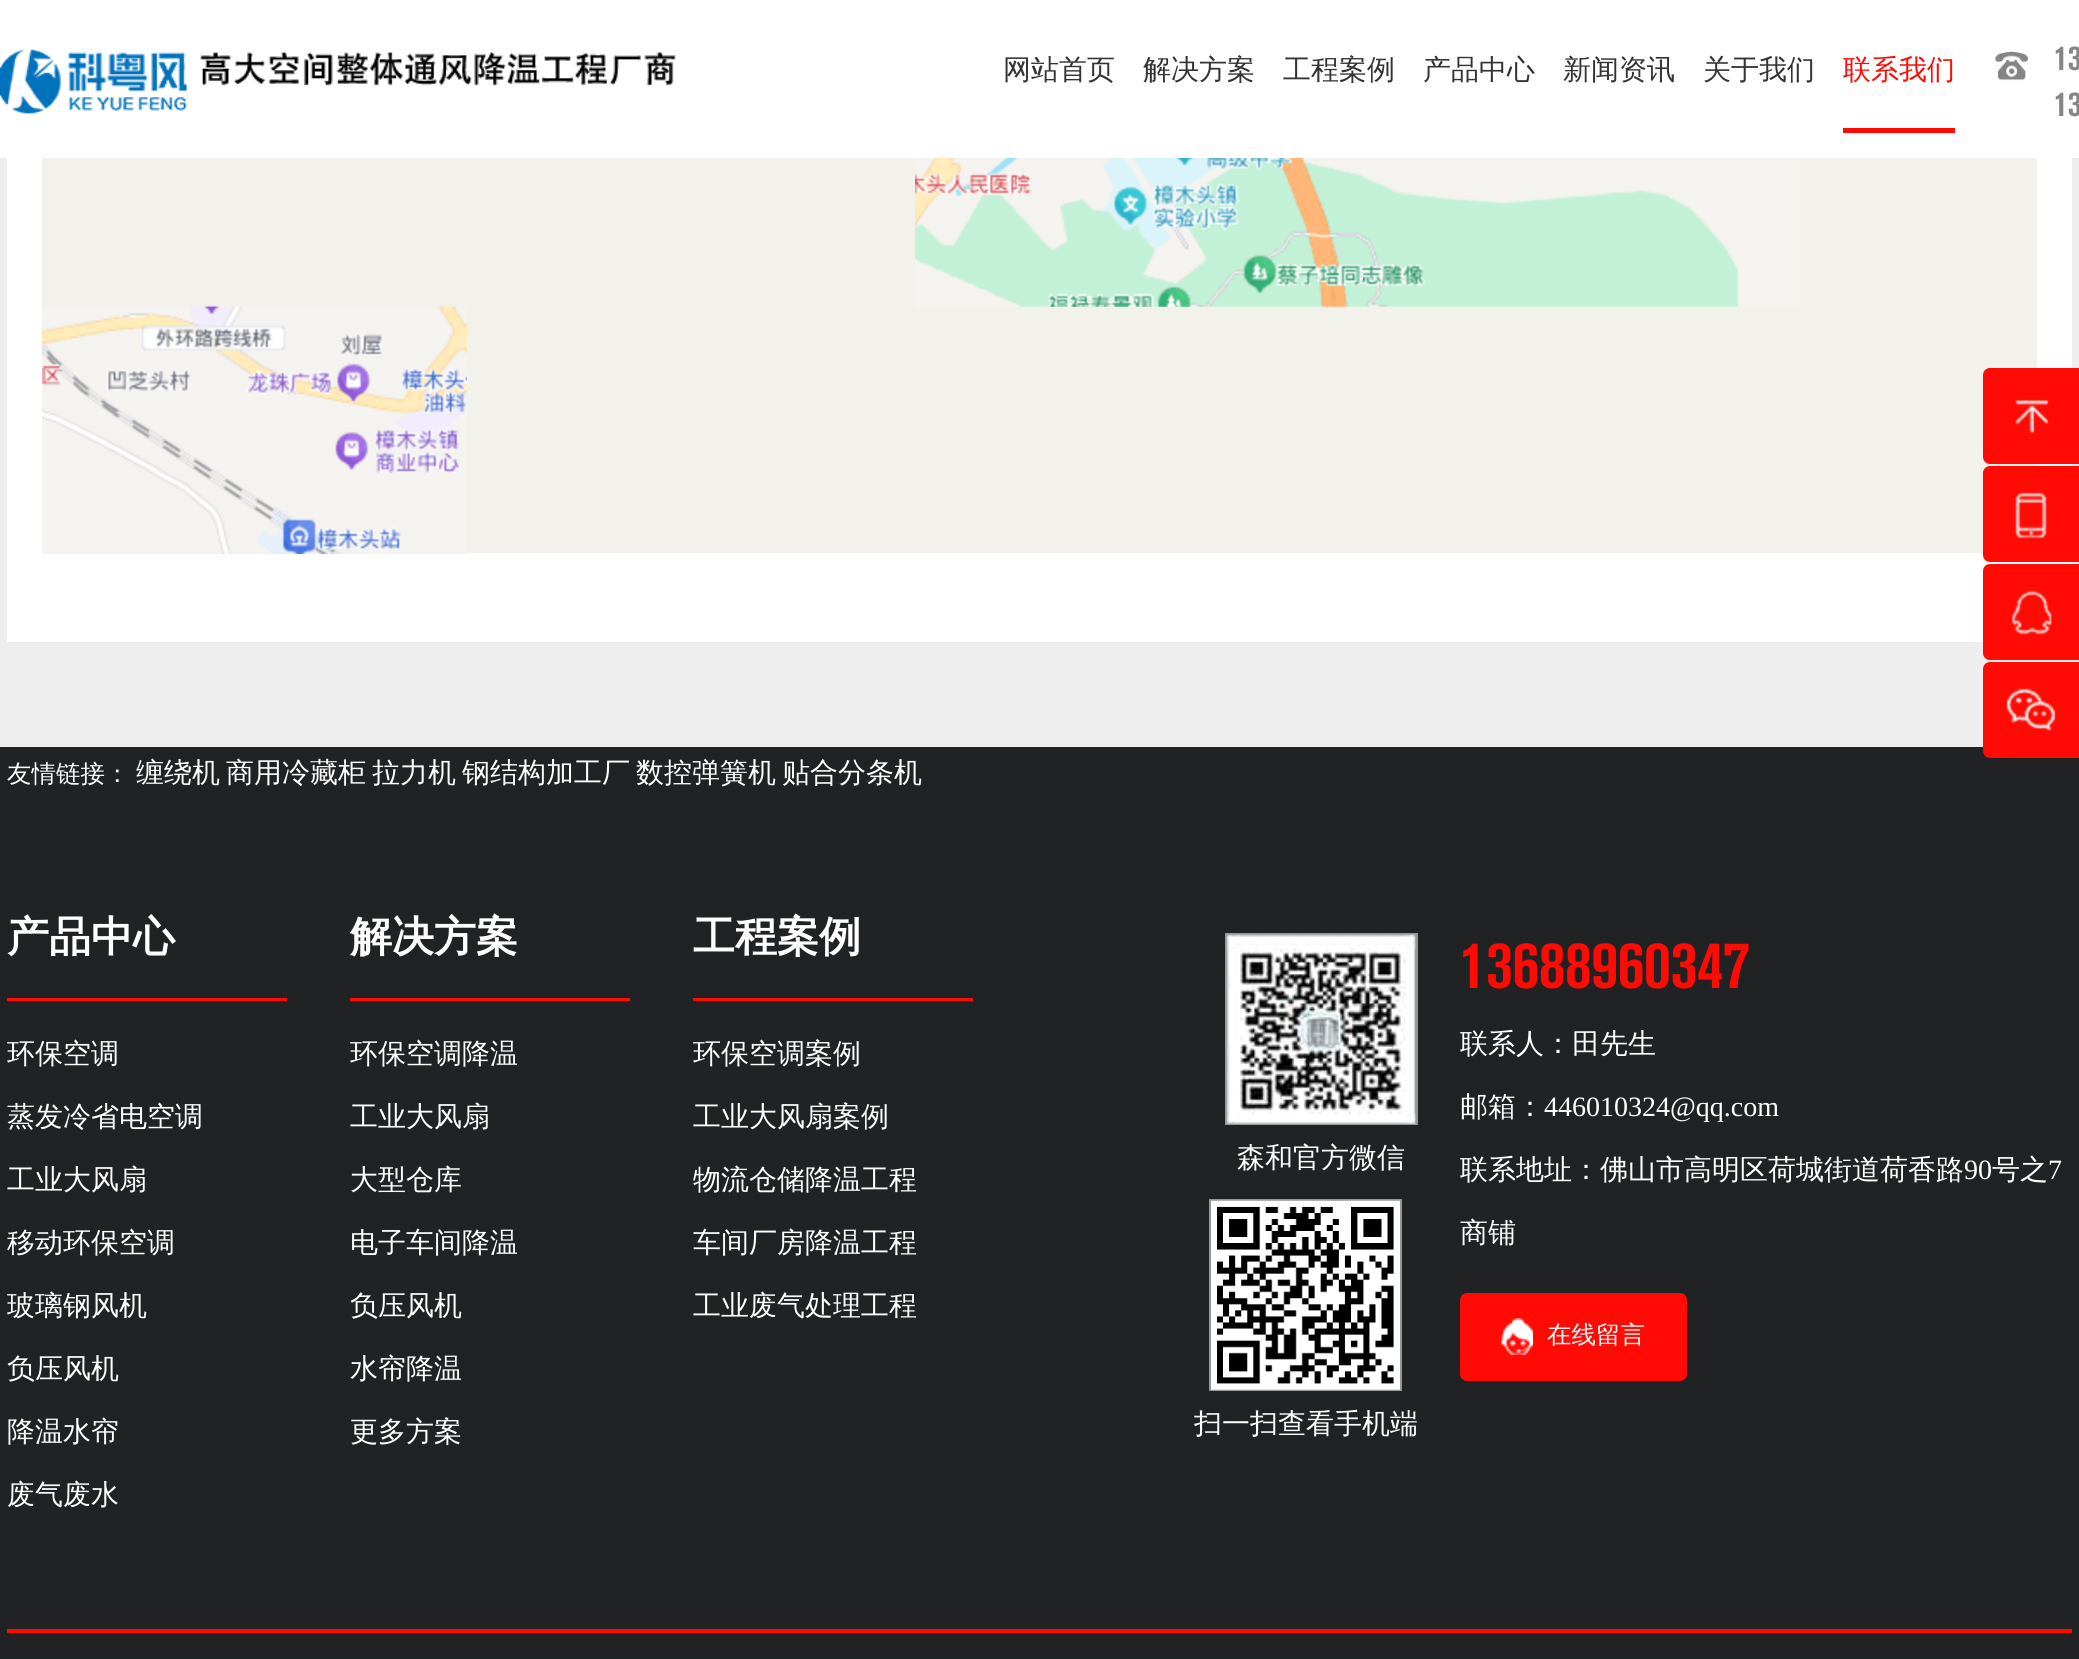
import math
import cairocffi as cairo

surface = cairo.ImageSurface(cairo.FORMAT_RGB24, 2079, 1659)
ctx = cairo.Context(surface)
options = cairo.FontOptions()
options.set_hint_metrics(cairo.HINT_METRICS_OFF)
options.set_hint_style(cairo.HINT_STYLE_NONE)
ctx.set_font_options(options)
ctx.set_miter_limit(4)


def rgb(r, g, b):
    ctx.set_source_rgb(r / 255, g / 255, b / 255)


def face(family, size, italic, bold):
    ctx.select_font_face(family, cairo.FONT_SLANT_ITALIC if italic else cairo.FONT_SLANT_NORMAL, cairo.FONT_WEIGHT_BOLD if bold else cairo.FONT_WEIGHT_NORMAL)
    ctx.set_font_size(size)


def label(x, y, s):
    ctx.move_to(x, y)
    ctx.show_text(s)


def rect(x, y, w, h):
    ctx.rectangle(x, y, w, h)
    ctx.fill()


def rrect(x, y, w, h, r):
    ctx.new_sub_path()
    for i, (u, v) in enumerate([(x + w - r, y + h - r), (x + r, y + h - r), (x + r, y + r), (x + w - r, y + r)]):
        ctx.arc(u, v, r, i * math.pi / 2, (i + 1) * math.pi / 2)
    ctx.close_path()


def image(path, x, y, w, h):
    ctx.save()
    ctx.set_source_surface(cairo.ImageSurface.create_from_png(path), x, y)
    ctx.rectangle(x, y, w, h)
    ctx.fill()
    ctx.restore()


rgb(238, 238, 238)
ctx.paint()
rgb(255, 255, 255)
rect(0, 0, 2079, 158)
image('image0.png', 0, 49, 676, 65)
face('WenQuanYi Zen Hei Medium', 28, 0, 0)
rgb(51, 51, 51)
label(1003, 79, '网站首页')
label(1143, 79, '解决方案')
label(1283, 79, '工程案例')
label(1423, 79, '产品中心')
label(1563, 79, '新闻资讯')
label(1703, 79, '关于我们')
rgb(255, 10, 4)
label(1843, 79, '联系我们')
rect(1843, 128, 112, 5)
image('image1.png', 1995, 51, 33, 30)
face('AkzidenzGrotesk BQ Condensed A', 35, 0, 1)
rgb(133, 133, 133)
label(2054, 70, '13')
label(2054, 116, '13')
rgb(255, 255, 255)
rect(7, 158, 2065, 484)
rgb(243, 241, 236)
rect(42, 158, 1995, 395)
image('image2.png', 915, 158, 448, 149)
image('image3.png', 1363, 158, 437, 149)
image('image4.png', 42, 305, 425, 249)
rgb(33, 34, 35)
rect(0, 747, 2079, 912)
rgb(255, 10, 4)
rrect(1983, 368, 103, 96, 7)
ctx.fill()
image('image5.png', 2015, 399, 34, 35)
rrect(1983, 466, 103, 96, 7)
ctx.fill()
image('image6.png', 2015, 492, 32, 47)
rrect(1983, 564, 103, 96, 7)
ctx.fill()
image('image7.png', 2011, 590, 41, 45)
rrect(1983, 662, 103, 96, 7)
ctx.fill()
image('image8.png', 2006, 688, 50, 43)
face('WenQuanYi Zen Hei Medium', 24.5, 0, 0)
rgb(255, 255, 255)
label(7, 782, '友情链接：')
face('WenQuanYi Zen Hei Medium', 28, 0, 0)
label(136, 782, '缠绕机')
label(226, 782, '商用冷藏柜')
label(372, 782, '拉力机')
label(462, 782, '钢结构加工厂')
label(636, 782, '数控弹簧机')
label(782, 782, '贴合分条机')
rgb(255, 10, 4)
rect(7, 998, 280, 3)
face('WenQuanYi Zen Hei', 42, 0, 1)
rgb(255, 255, 255)
label(7, 951, '产品中心')
face('WenQuanYi Zen Hei Medium', 28, 0, 0)
label(7, 1063, '环保空调')
label(7, 1126, '蒸发冷省电空调')
label(7, 1189, '工业大风扇')
label(7, 1252, '移动环保空调')
label(7, 1315, '玻璃钢风机')
label(7, 1378, '负压风机')
label(7, 1441, '降温水帘')
label(7, 1504, '废气废水')
rgb(255, 10, 4)
rect(350, 998, 280, 3)
face('WenQuanYi Zen Hei', 42, 0, 1)
rgb(255, 255, 255)
label(350, 951, '解决方案')
face('WenQuanYi Zen Hei Medium', 28, 0, 0)
label(350, 1063, '环保空调降温')
label(350, 1126, '工业大风扇')
label(350, 1189, '大型仓库')
label(350, 1252, '电子车间降温')
label(350, 1315, '负压风机')
label(350, 1378, '水帘降温')
label(350, 1441, '更多方案')
rgb(255, 10, 4)
rect(693, 998, 280, 3)
face('WenQuanYi Zen Hei', 42, 0, 1)
rgb(255, 255, 255)
label(693, 951, '工程案例')
face('WenQuanYi Zen Hei Medium', 28, 0, 0)
label(693, 1063, '环保空调案例')
label(693, 1126, '工业大风扇案例')
label(693, 1189, '物流仓储降温工程')
label(693, 1252, '车间厂房降温工程')
label(693, 1315, '工业废气处理工程')
ctx.rectangle(1226, 934, 191, 190)
rgb(146, 152, 152)
ctx.stroke()
image('image9.png', 1226, 934, 190, 190)
rgb(255, 255, 255)
label(1237, 1167, '森和官方微信')
face('AkzidenzGrotesk BQ Condensed A', 66.5, 0, 1)
rgb(255, 10, 4)
label(1460, 988, '13688960347')
face('WenQuanYi Zen Hei Medium', 28, 0, 0)
rgb(255, 255, 255)
label(1460, 1053, '联系人：田先生')
label(1460, 1116, '邮箱：')
face('Liberation Serif', 28, 0, 0)
label(1544, 1116, '446010324@qq.com')
face('WenQuanYi Zen Hei Medium', 28, 0, 0)
label(1460, 1179, '联系地址：佛山市高明区荷城街道荷香路')
face('Liberation Serif', 28, 0, 0)
label(1964, 1179, '90')
face('WenQuanYi Zen Hei Medium', 28, 0, 0)
label(1992, 1179, '号之')
face('Liberation Serif', 28, 0, 0)
label(2048, 1179, '7')
face('WenQuanYi Zen Hei Medium', 28, 0, 0)
label(1460, 1242, '商铺')
rgb(255, 10, 4)
rrect(1460, 1293, 227, 88, 7)
ctx.fill()
image('image10.png', 1501, 1318, 32, 37)
face('WenQuanYi Zen Hei Medium', 24.5, 0, 0)
rgb(255, 255, 255)
label(1547, 1343, '在线留言')
ctx.rectangle(1210, 1200, 191, 190)
rgb(146, 152, 152)
ctx.stroke()
image('image11.png', 1211, 1200, 189, 190)
face('WenQuanYi Zen Hei Medium', 28, 0, 0)
rgb(255, 255, 255)
label(1194, 1433, '扫一扫查看手机端')
rgb(255, 10, 4)
rect(7, 1629, 2065, 4)
surface.write_to_png('render.png')
